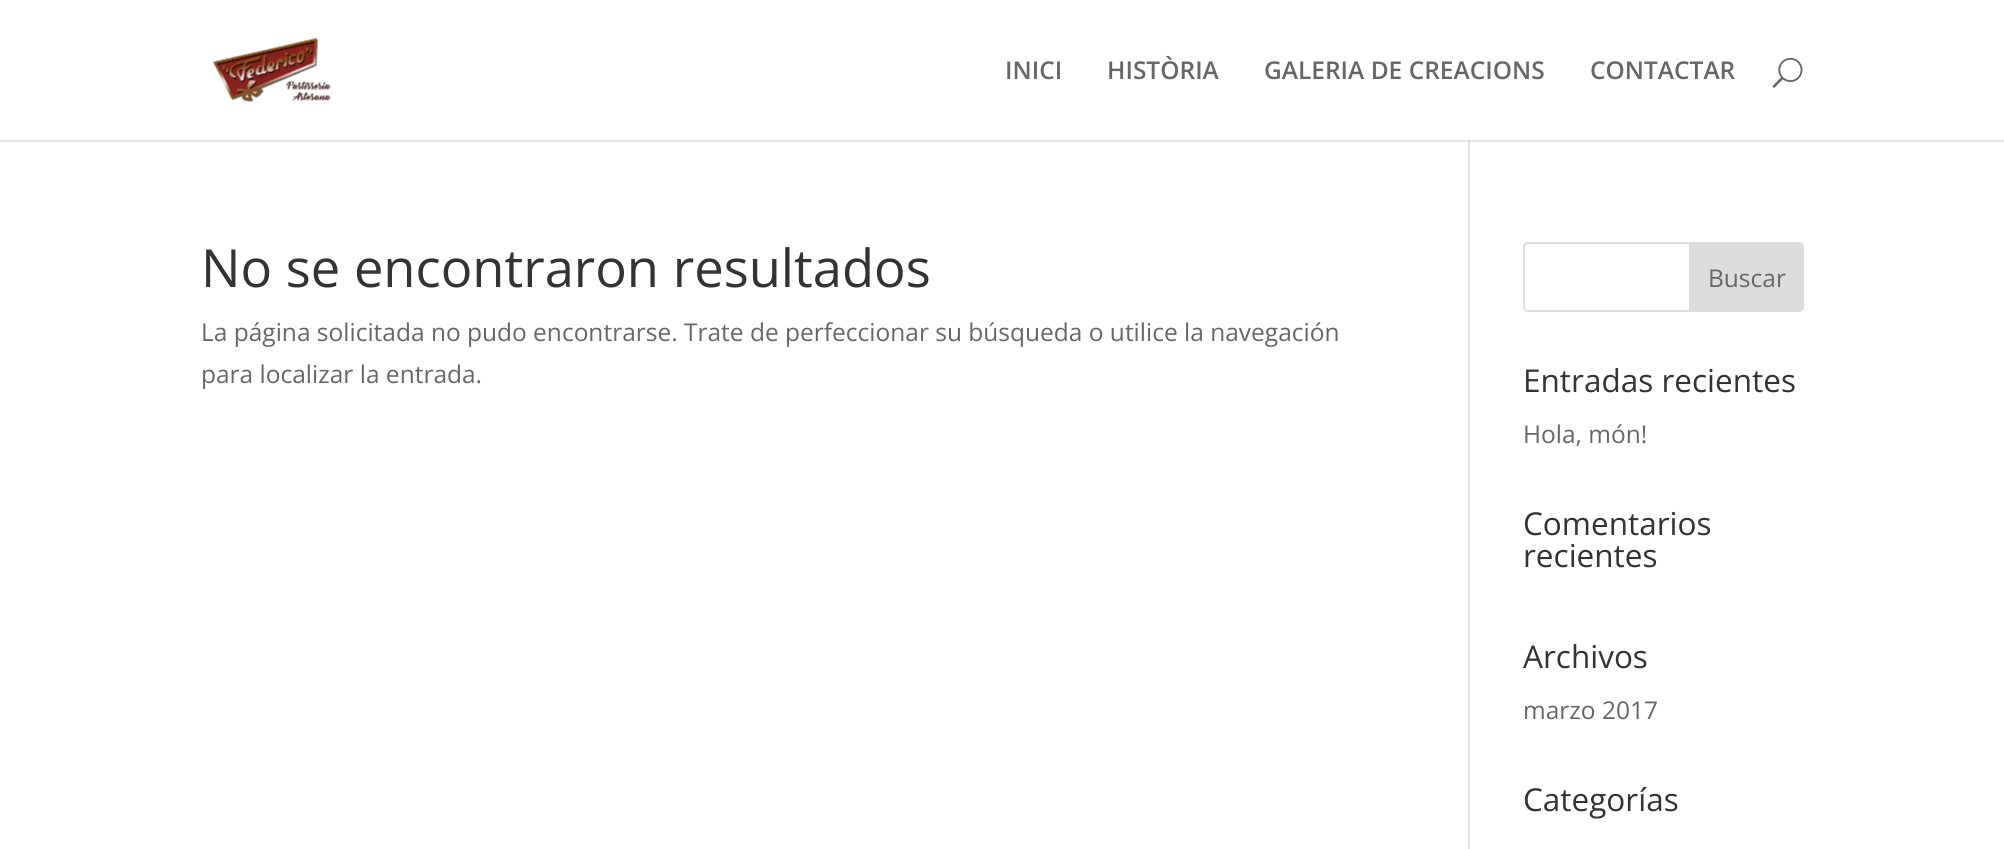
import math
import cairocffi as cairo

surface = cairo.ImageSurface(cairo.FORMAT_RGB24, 2004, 849)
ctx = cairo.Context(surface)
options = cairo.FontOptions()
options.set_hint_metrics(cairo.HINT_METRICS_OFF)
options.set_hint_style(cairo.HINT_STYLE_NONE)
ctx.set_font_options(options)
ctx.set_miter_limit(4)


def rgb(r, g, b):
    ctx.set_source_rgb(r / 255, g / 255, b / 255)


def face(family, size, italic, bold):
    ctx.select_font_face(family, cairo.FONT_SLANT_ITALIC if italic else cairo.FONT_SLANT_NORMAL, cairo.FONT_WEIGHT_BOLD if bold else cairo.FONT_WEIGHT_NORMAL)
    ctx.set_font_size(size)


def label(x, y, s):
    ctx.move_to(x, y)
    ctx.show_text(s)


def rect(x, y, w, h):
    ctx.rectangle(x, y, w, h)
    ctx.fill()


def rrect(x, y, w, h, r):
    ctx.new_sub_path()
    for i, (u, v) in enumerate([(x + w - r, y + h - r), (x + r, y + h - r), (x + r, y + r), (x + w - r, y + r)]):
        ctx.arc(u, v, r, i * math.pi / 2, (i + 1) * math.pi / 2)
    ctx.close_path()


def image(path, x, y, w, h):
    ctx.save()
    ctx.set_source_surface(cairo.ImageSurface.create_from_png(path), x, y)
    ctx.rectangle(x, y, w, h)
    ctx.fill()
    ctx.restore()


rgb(255, 255, 255)
ctx.paint()
rgb(226, 226, 226)
rect(1468, 140, 2, 709)
ctx.set_source_rgba(0, 0, 0, 0.1)
ctx.new_path()
ctx.move_to(0, 140)
ctx.line_to(0, 142)
ctx.line_to(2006, 142)
ctx.line_to(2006, 2)
ctx.line_to(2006, 140)
ctx.close_path()
ctx.fill()
image('image0.png', 213, 37, 119, 65)
face('Open Sans SemiBold', 24.5, 0, 0)
rgb(102, 102, 102)
label(1005, 79, 'INICI')
label(1107, 79, 'HISTÒRIA')
label(1264, 79, 'GALERIA DE CREACIONS')
label(1590, 79, 'CONTACTAR')
image('image1.png', 1772, 57, 31, 31)
face('Open Sans', 52.5, 0, 0)
rgb(51, 51, 51)
label(201, 287, 'No se encontraron resultados')
face('Open Sans', 24.5, 0, 0)
rgb(102, 102, 102)
label(201, 341, 'La página solicitada no pudo encontrarse. Trate de perfeccionar su búsqueda o utilice la navegación')
label(201, 383, 'para localizar la entrada.')
rrect(1524, 243, 279, 68, 4)
rgb(221, 221, 221)
ctx.stroke()
ctx.new_path()
ctx.move_to(1690, 243)
ctx.line_to(1799, 243)
ctx.curve_to(1801, 243, 1803, 245, 1803, 247)
ctx.line_to(1803, 307)
ctx.curve_to(1803, 309, 1801, 311, 1799, 311)
ctx.line_to(1690, 311)
ctx.close_path()
ctx.fill_preserve()
ctx.stroke()
rgb(102, 102, 102)
label(1708, 287, 'Buscar')
face('Open Sans', 31.5, 0, 0)
rgb(51, 51, 51)
label(1523, 392, 'Entradas recientes')
face('Open Sans', 24.5, 0, 0)
rgb(102, 102, 102)
label(1523, 443, 'Hola, món!')
face('Open Sans', 31.5, 0, 0)
rgb(51, 51, 51)
label(1523, 535, 'Comentarios')
label(1523, 567, 'recientes')
label(1523, 668, 'Archivos')
face('Open Sans', 24.5, 0, 0)
rgb(102, 102, 102)
label(1523, 719, 'marzo 2017')
face('Open Sans', 31.5, 0, 0)
rgb(51, 51, 51)
label(1523, 811, 'Categorías')
surface.write_to_png('render.png')
